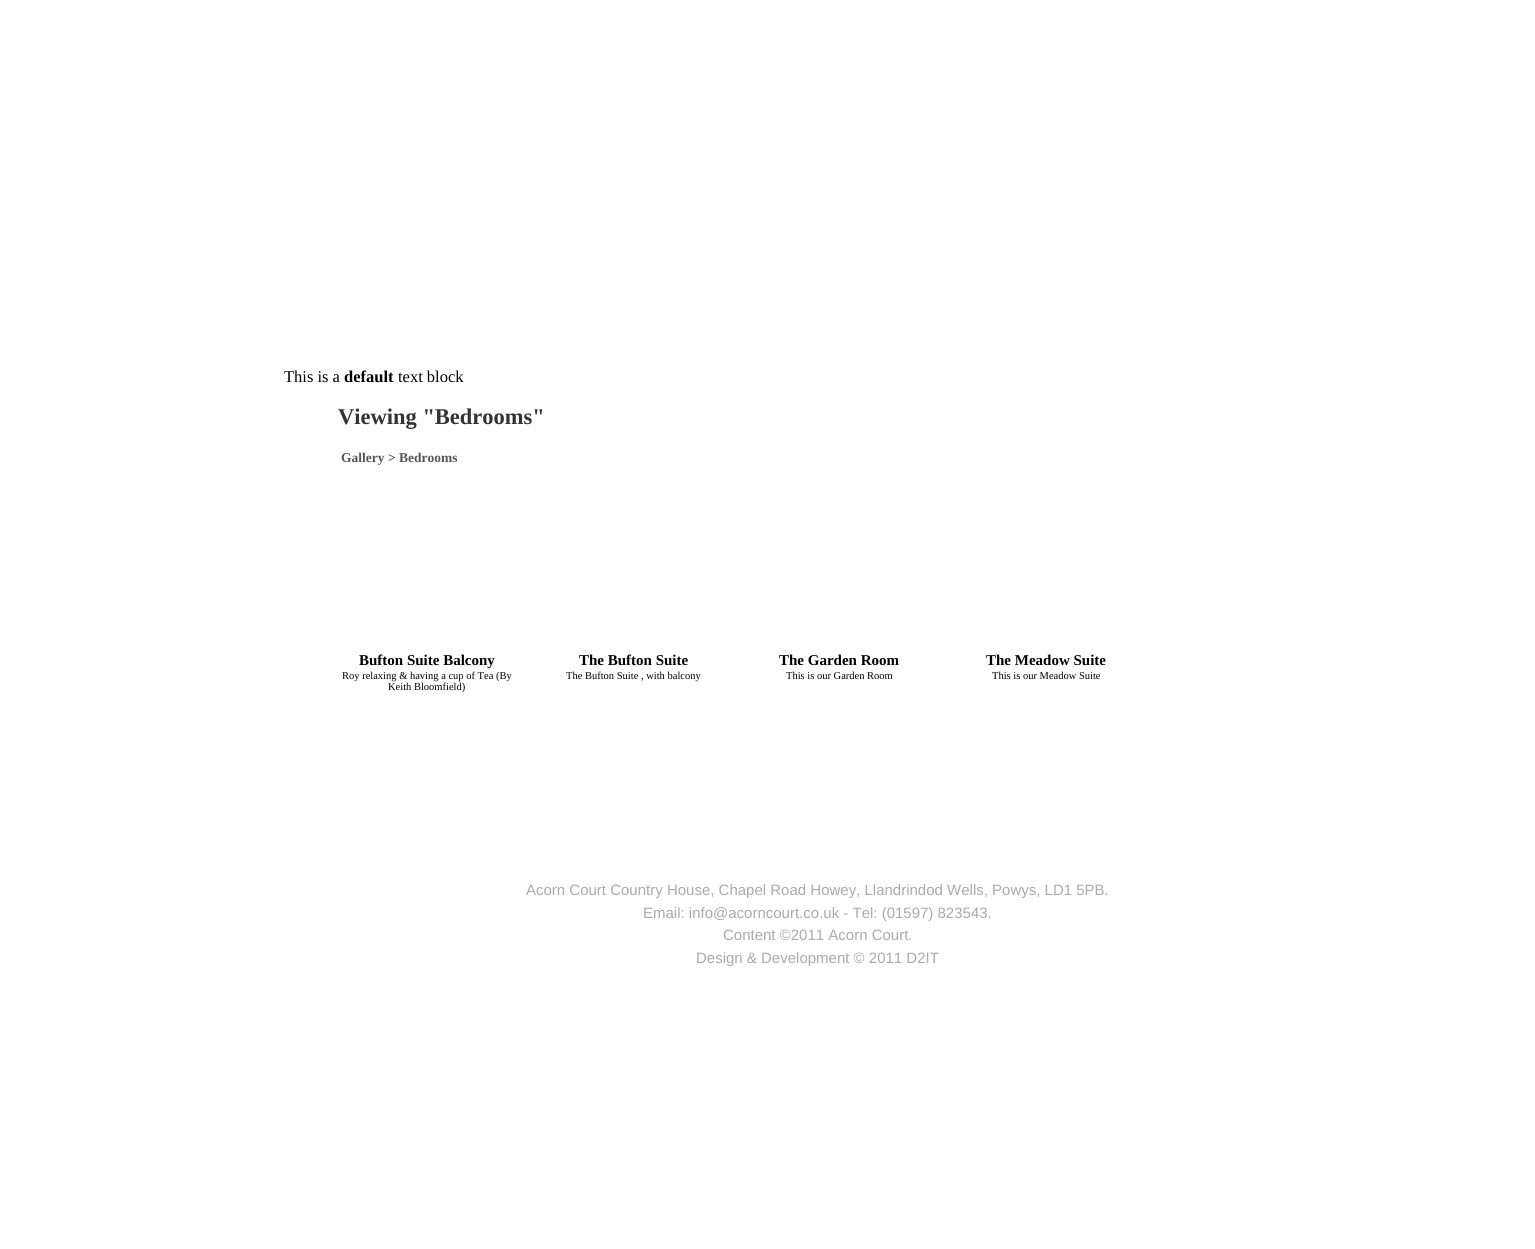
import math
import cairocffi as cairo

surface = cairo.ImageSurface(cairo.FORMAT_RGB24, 1535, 1249)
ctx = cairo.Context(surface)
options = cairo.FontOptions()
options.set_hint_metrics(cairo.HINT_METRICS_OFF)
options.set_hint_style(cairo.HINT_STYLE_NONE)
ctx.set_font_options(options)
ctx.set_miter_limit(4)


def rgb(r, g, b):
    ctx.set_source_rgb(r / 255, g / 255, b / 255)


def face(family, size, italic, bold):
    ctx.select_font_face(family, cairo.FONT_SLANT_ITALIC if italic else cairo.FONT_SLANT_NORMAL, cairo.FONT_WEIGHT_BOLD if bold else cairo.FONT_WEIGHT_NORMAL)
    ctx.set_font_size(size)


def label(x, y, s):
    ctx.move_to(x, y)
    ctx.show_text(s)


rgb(255, 255, 255)
ctx.paint()
face('Liberation Serif', 16.5, 0, 0)
rgb(0, 0, 0)
label(284, 382, 'This is a')
face('Liberation Serif', 16.5, 0, 1)
label(344, 382, 'default')
face('Liberation Serif', 16.5, 0, 0)
label(398, 382, 'text block')
face('Liberation Serif', 22.5, 0, 1)
rgb(51, 51, 51)
label(338, 424, 'Viewing "Bedrooms"')
face('Liberation Serif', 13.5, 0, 1)
rgb(85, 85, 85)
label(341, 462, 'Gallery')
face('Liberation Serif', 13.5, 0, 0)
rgb(0, 0, 0)
label(388, 462, '>')
face('Liberation Serif', 13.5, 0, 1)
rgb(85, 85, 85)
label(399, 462, 'Bedrooms')
face('Liberation Serif', 15, 0, 1)
rgb(0, 0, 0)
label(359, 665, 'Bufton Suite Balcony')
face('Liberation Serif', 10.5, 0, 0)
label(342, 679, 'Roy relaxing & having a cup of Tea (By')
label(388, 690, 'Keith Bloomfield)')
face('Liberation Serif', 15, 0, 1)
label(579, 665, 'The Bufton Suite')
face('Liberation Serif', 10.5, 0, 0)
label(566, 679, 'The Bufton Suite , with balcony')
face('Liberation Serif', 15, 0, 1)
label(779, 665, 'The Garden Room')
face('Liberation Serif', 10.5, 0, 0)
label(786, 679, 'This is our Garden Room')
face('Liberation Serif', 15, 0, 1)
label(986, 665, 'The Meadow Suite')
face('Liberation Serif', 10.5, 0, 0)
label(992, 679, 'This is our Meadow Suite')
face('Liberation Sans', 15, 0, 0)
rgb(170, 170, 170)
label(526, 895, 'Acorn Court Country House, Chapel Road Howey, Llandrindod Wells, Powys, LD1 5PB.')
label(643, 918, 'Email: info@acorncourt.co.uk - Tel: (01597) 823543.')
label(723, 940, 'Content ©2011 Acorn Court.')
label(696, 963, 'Design & Development © 2011 D2IT')
surface.write_to_png('render.png')
